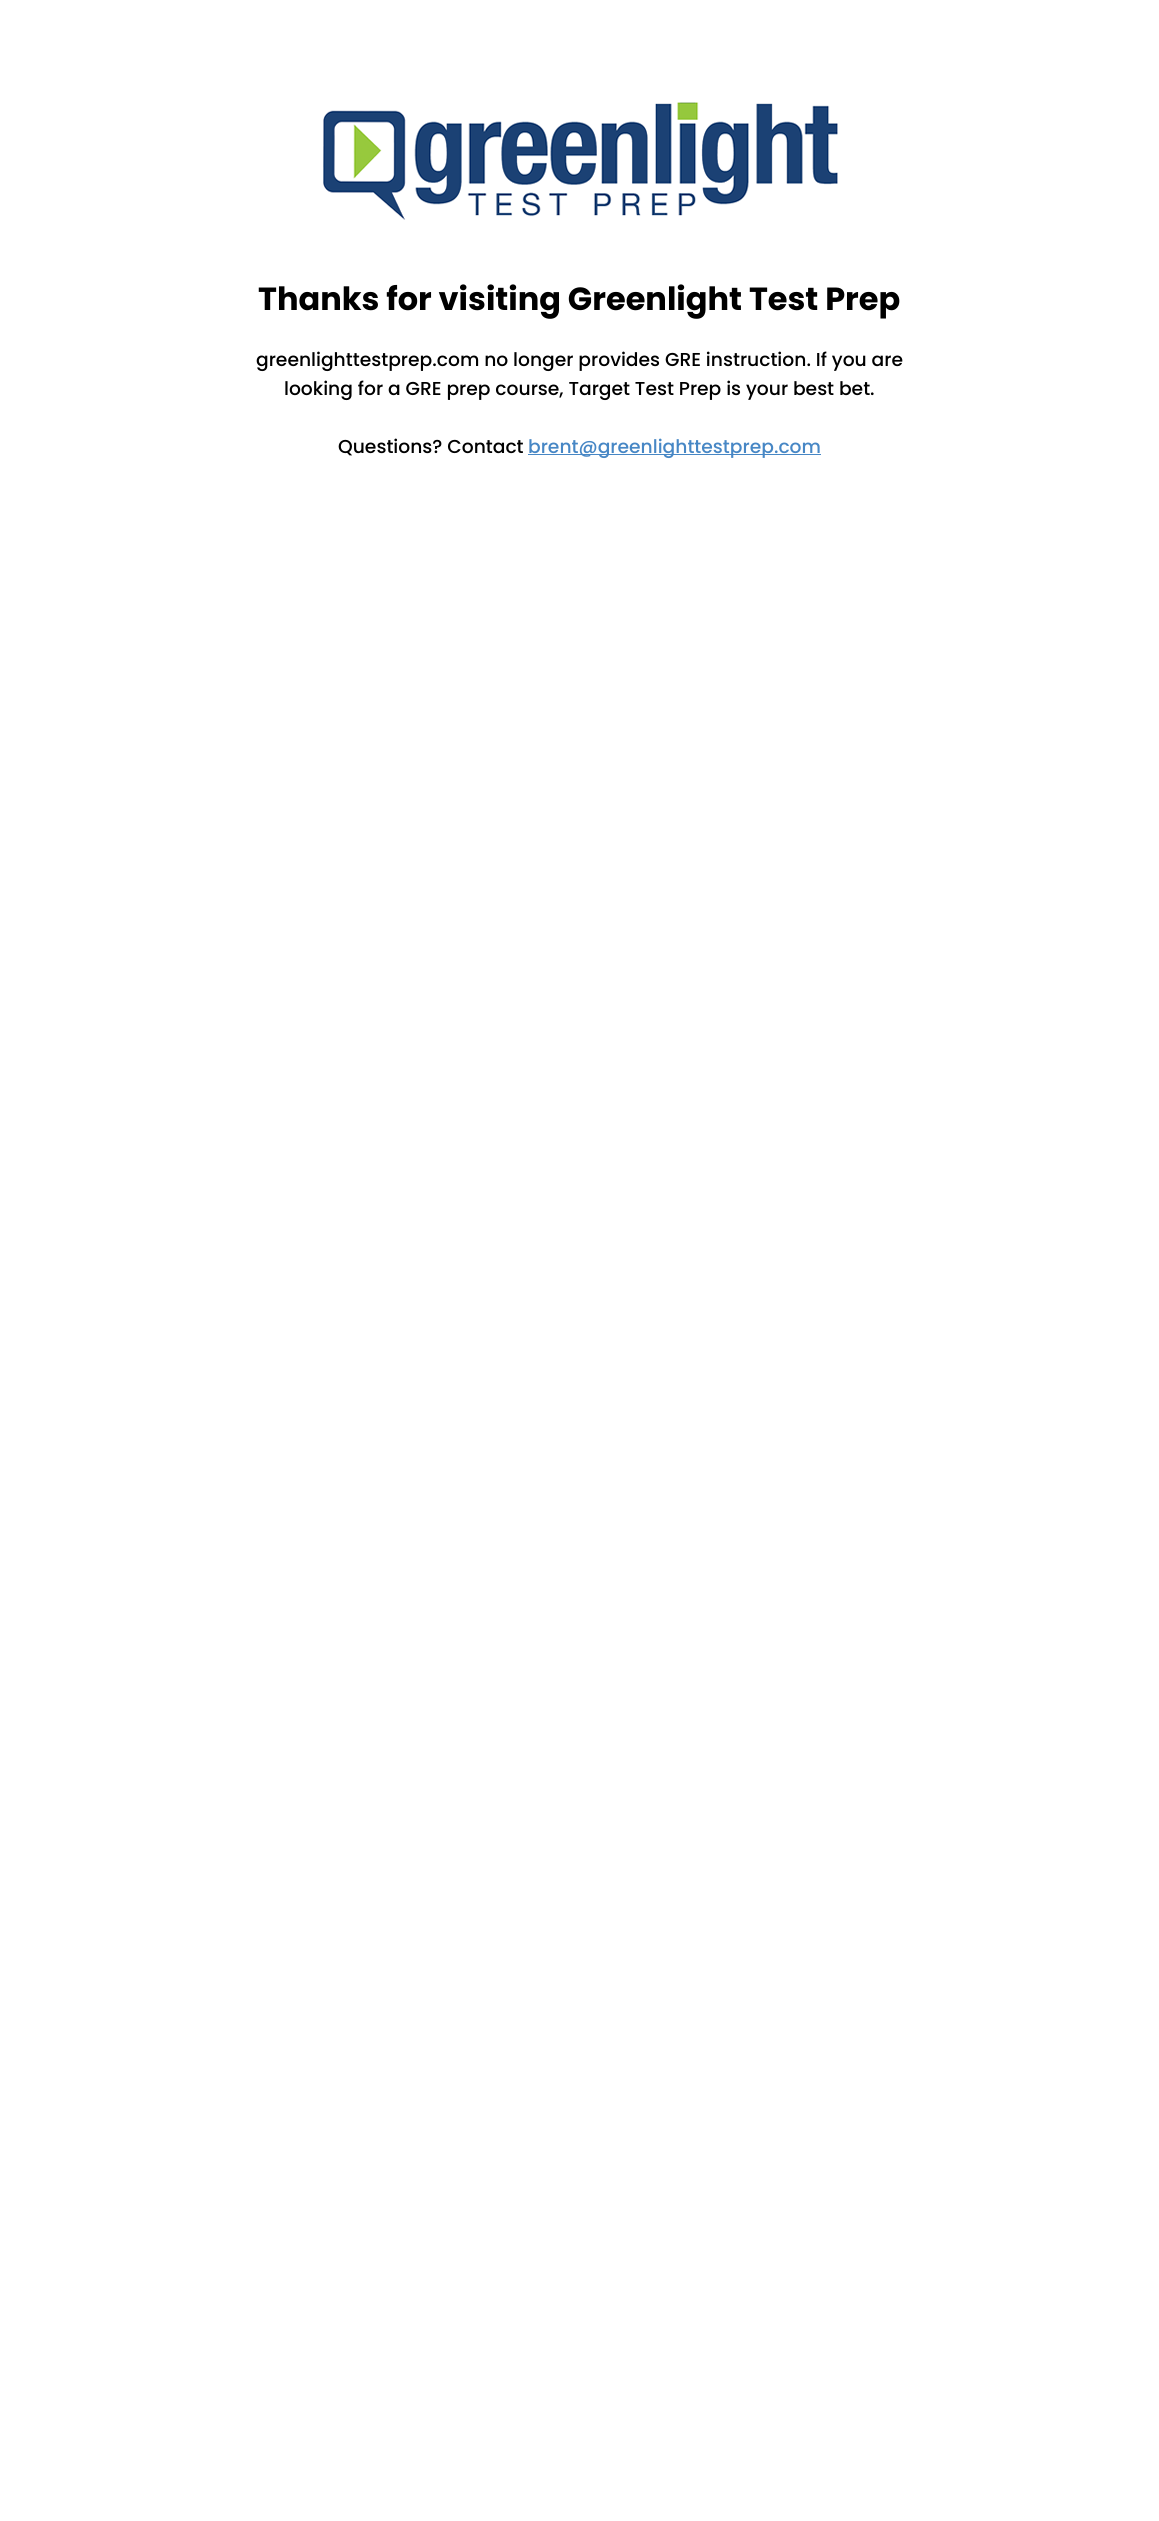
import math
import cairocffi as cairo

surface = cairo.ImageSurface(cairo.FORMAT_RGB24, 1159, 2521)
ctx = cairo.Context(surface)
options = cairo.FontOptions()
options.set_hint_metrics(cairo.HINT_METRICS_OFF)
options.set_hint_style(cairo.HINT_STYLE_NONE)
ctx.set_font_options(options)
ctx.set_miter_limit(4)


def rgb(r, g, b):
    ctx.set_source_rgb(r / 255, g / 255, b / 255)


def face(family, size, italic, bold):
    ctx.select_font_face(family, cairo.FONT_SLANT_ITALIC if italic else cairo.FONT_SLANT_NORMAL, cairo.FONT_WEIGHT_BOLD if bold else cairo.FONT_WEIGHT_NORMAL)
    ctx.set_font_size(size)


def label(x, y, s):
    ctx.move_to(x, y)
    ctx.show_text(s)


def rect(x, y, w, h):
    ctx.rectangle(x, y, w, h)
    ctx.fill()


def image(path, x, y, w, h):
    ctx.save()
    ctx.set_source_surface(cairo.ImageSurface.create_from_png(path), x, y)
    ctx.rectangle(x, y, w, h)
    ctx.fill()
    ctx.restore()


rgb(255, 255, 255)
ctx.paint()
image('image0.png', 323, 102, 515, 118)
face('Poppins', 32, 0, 1)
rgb(0, 0, 0)
label(258, 310, 'Thanks for visiting Greenlight Test Prep')
face('Poppins Medium', 18.7, 0, 0)
label(256, 366, 'greenlighttestprep.com no longer provides GRE instruction. If you are')
label(284, 395, 'looking for a GRE prep course, Target Test Prep is your best bet.')
label(338, 453, 'Questions? Contact')
rgb(71, 135, 197)
rect(528, 454, 293, 1)
label(528, 453, 'brent@greenlighttestprep.com')
surface.write_to_png('render.png')
